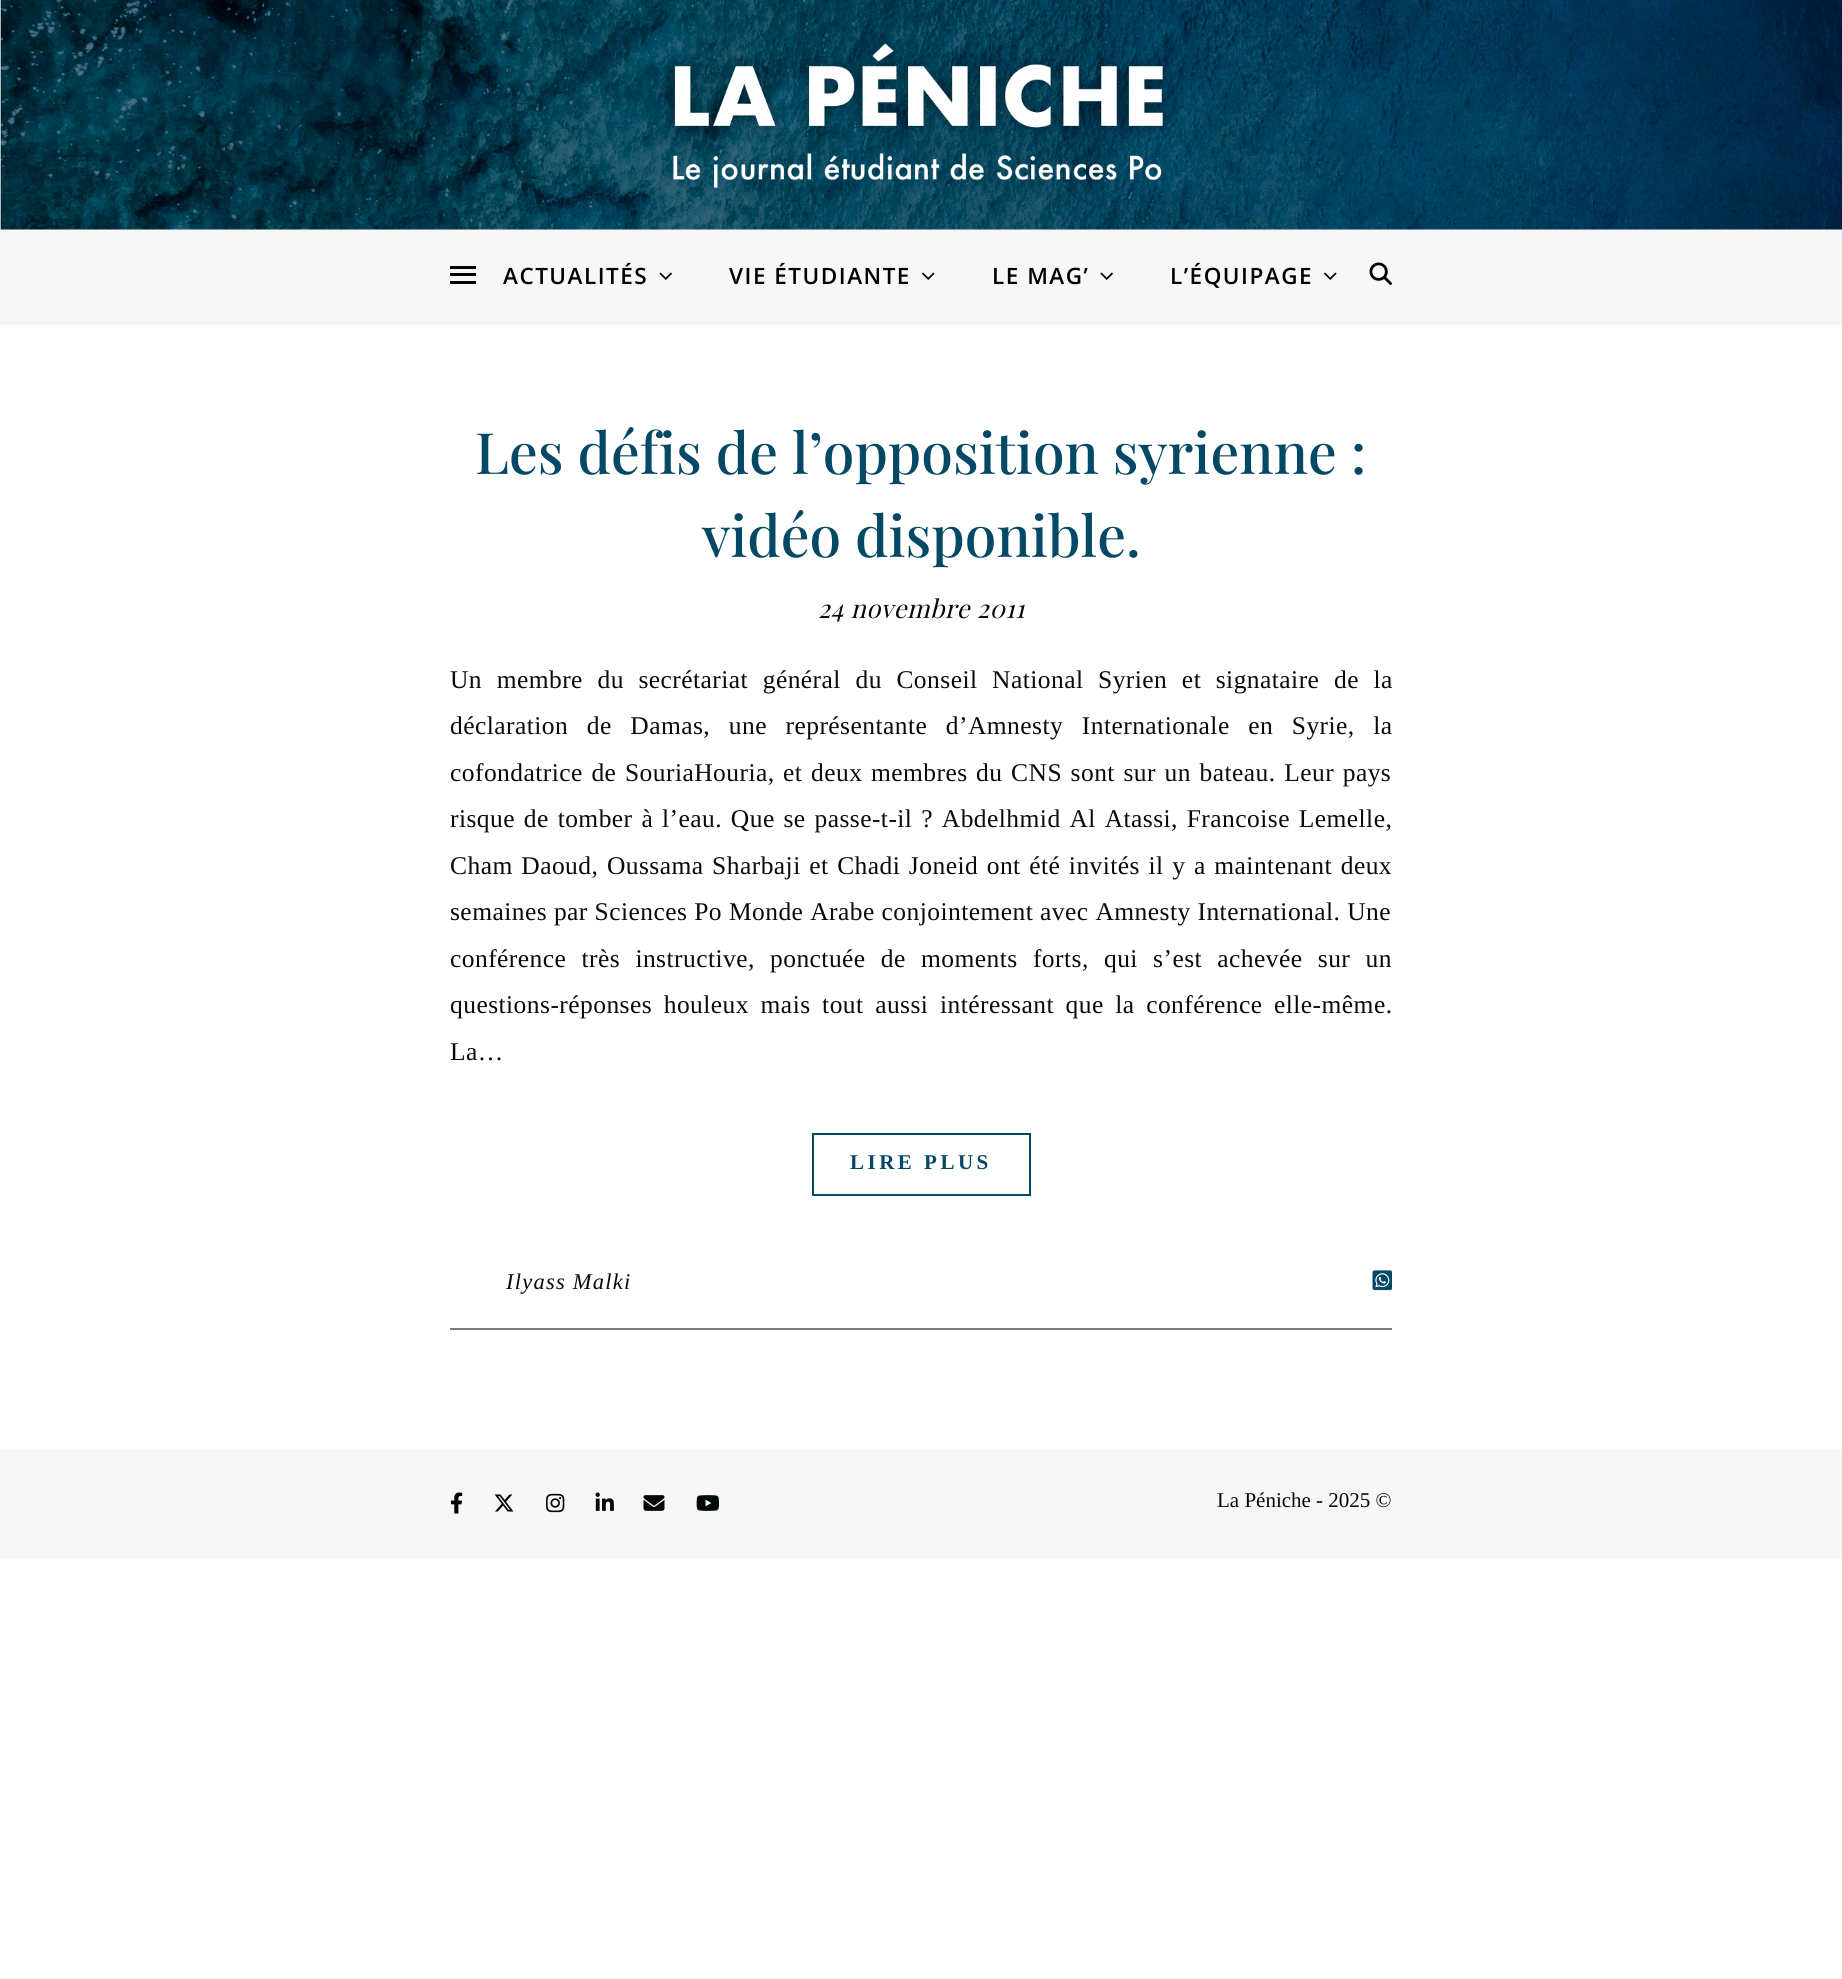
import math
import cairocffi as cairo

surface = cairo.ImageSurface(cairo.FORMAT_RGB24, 1842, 1979)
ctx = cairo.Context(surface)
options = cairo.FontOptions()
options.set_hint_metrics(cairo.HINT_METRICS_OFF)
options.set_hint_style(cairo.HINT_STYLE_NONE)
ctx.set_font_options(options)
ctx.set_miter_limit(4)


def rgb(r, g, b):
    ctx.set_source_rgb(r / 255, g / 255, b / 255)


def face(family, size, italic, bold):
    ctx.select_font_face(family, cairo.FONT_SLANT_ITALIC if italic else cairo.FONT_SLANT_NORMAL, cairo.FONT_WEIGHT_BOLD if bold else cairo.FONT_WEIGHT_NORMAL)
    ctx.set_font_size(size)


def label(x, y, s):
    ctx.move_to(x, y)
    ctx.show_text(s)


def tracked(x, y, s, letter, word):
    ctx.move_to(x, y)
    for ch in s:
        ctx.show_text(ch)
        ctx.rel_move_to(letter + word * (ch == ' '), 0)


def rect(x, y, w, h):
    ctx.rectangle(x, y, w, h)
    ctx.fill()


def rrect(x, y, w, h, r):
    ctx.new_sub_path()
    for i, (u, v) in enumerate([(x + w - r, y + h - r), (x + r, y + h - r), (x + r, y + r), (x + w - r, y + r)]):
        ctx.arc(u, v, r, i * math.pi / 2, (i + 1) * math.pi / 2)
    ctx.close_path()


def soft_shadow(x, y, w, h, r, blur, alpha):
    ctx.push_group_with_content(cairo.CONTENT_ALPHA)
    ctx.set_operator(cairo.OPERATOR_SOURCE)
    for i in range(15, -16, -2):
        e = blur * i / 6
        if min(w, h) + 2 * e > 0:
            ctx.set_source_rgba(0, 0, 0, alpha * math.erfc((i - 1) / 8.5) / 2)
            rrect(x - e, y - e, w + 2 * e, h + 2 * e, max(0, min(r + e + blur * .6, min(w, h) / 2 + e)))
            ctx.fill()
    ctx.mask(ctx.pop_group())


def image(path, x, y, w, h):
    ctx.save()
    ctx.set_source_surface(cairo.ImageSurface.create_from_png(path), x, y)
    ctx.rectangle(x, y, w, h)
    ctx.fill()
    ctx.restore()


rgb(255, 255, 255)
ctx.paint()
image('image0.png', 0, 0, 1842, 230)
rgb(0, 0, 0)
soft_shadow(0, 231, 1842, 92, 0, 4, 0.1)
rgb(247, 247, 247)
rect(0, 230, 1842, 91)
rgb(0, 0, 0)
rect(450, 266, 26, 3)
rect(450, 273, 26, 3)
rect(450, 281, 26, 3)
face('Open Sans SemiBold', 22.5, 0, 0)
tracked(503, 284, 'ACTUALITÉS', 1.5, 0)
image('image1.png', 659, 272, 13, 8)
tracked(729, 284, 'VIE ÉTUDIANTE', 1.5, 0)
image('image2.png', 922, 272, 13, 8)
tracked(992, 284, 'LE MAG’', 1.5, 0)
image('image1.png', 1100, 272, 13, 8)
tracked(1170, 284, 'L’ÉQUIPAGE', 1.5, 0)
image('image2.png', 1324, 272, 13, 8)
image('image3.png', 1369, 262, 23, 23)
face('Playfair Display Medium', 57, 0, 0)
rgb(3, 72, 101)
label(475, 474, 'Les défis de l’opposition syrienne :')
label(702, 557, 'vidéo disponible.')
face('Playfair Display', 25.5, 1, 0)
rgb(10, 10, 10)
tracked(818, 618, '24 novembre 2011', 0.45, 0)
face('Liberation Serif', 25.5, 0, 0)
tracked(450, 688, 'Un membre du secrétariat général du Conseil National Syrien et signataire de la', 0.45, 7.75)
tracked(450, 734, 'déclaration de Damas, une représentante d’Amnesty Internationale en Syrie, la', 0.45, 11.75)
tracked(450, 781, 'cofondatrice de SouriaHouria, et deux membres du CNS sont sur un bateau. Leur pays', 0.45, 1.75)
tracked(450, 827, 'risque de tomber à l’eau. Que se passe-t-il ? Abdelhmid Al Atassi, Francoise Lemelle,', 0.45, 2)
tracked(450, 874, 'Cham Daoud, Oussama Sharbaji et Chadi Joneid ont été invités il y a maintenant deux', 0.45, 1.75)
tracked(450, 920, 'semaines par Sciences Po Monde Arabe conjointement avec Amnesty International. Une', 0.45, 0)
tracked(450, 967, 'conférence très instructive, ponctuée de moments forts, qui s’est achevée sur un', 0.45, 8.4)
tracked(450, 1013, 'questions-réponses houleux mais tout aussi intéressant que la conférence elle-même.', 0.45, 4.75)
tracked(450, 1060, 'La…', 0.45, 0)
ctx.rectangle(813, 1134, 217, 61)
rgb(3, 72, 101)
ctx.stroke()
face('Liberation Serif', 21, 0, 1)
tracked(850, 1169, 'LIRE PLUS', 3.5, 0)
rgb(122, 122, 122)
rect(450, 1328, 942, 2)
face('Liberation Serif', 22.5, 1, 0)
rgb(10, 10, 10)
tracked(506, 1289, 'Ilyass Malki', 1.25, 0)
image('image4.png', 1372, 1270, 20, 21)
rgb(247, 247, 247)
rect(0, 1449, 1842, 110)
image('image5.png', 450, 1492, 13, 22)
image('image6.png', 494, 1494, 20, 18)
image('image7.png', 546, 1493, 19, 20)
image('image8.png', 595, 1492, 19, 19)
image('image9.png', 643, 1495, 22, 16)
image('image10.png', 696, 1495, 23, 16)
face('Liberation Serif', 21, 0, 0)
rgb(0, 7, 10)
label(1217, 1507, 'La Péniche - 2025 ©')
surface.write_to_png('render.png')
